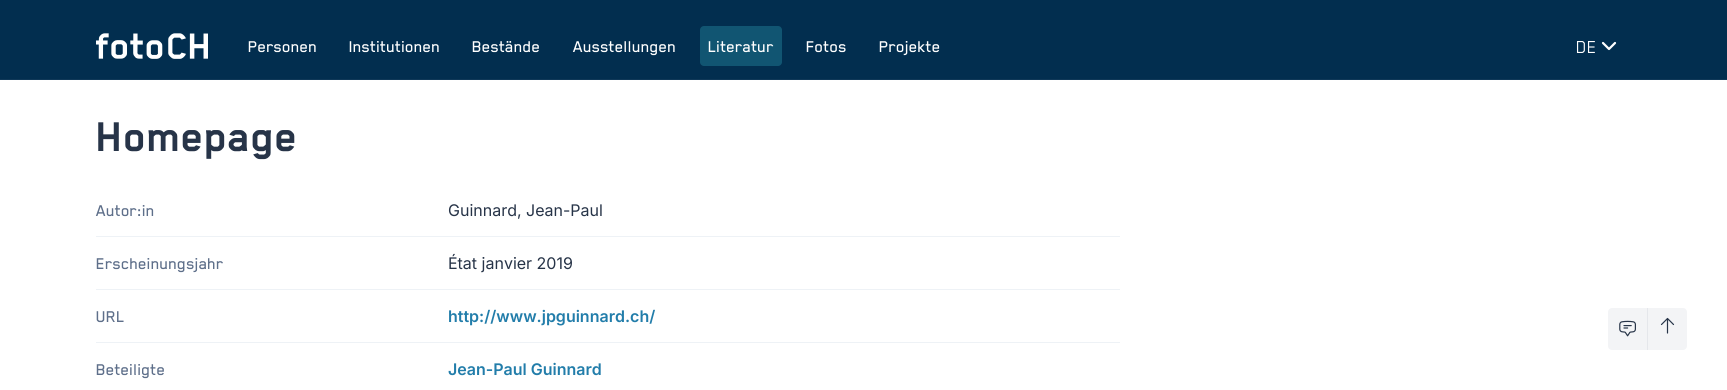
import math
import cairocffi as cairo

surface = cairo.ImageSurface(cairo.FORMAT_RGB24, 1727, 390)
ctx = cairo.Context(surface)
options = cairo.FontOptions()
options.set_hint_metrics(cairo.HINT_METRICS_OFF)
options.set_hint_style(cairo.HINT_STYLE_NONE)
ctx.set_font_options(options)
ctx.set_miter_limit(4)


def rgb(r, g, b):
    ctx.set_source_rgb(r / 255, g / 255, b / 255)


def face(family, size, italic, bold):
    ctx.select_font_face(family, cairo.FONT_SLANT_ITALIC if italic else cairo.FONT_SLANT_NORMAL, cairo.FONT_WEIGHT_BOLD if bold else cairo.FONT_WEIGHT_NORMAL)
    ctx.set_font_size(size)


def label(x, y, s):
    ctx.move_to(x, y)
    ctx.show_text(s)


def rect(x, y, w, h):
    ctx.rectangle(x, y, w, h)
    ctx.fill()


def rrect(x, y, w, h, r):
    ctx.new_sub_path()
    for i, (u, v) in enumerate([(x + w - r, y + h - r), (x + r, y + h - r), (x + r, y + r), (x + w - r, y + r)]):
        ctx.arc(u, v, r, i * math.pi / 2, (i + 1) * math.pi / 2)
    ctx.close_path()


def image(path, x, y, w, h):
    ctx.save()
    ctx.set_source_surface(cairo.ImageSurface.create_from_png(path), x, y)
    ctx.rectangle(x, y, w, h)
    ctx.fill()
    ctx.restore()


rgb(255, 255, 255)
ctx.paint()
rgb(2, 46, 79)
rect(0, 0, 1727, 79)
rgb(15, 56, 88)
rect(0, 79, 1727, 1)
image('image0.png', 96, 33, 112, 26)
face('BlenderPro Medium', 18, 0, 0)
rgb(255, 255, 255)
label(248, 52, 'Personen')
label(349, 52, 'Institutionen')
label(472, 52, 'Bestände')
label(573, 52, 'Ausstellungen')
rgb(17, 85, 114)
rrect(700, 26, 82, 40, 4)
ctx.fill()
rgb(255, 255, 255)
label(708, 52, 'Literatur')
label(806, 52, 'Fotos')
label(879, 52, 'Projekte')
ctx.new_path()
ctx.move_to(1603, 43)
ctx.line_to(1609, 49)
ctx.line_to(1615, 43)
ctx.set_line_width(2.2)
ctx.set_line_cap(cairo.LINE_CAP_ROUND)
ctx.set_line_join(cairo.LINE_JOIN_ROUND)
ctx.stroke()
face('BlenderPro', 20, 0, 0)
label(1576, 53, 'DE')
face('BlenderPro', 48, 0, 1)
rgb(39, 52, 72)
label(96, 151, 'Homepage')
face('BlenderPro Medium', 18, 0, 0)
rgb(94, 111, 138)
label(96, 216, 'Autor:in')
face('Inter', 16, 0, 0)
rgb(39, 52, 72)
label(448, 216, 'Guinnard, Jean-Paul')
rgb(238, 242, 246)
rect(96, 236, 1024, 1)
face('BlenderPro Medium', 18, 0, 0)
rgb(94, 111, 138)
label(96, 269, 'Erscheinungsjahr')
face('Inter', 16, 0, 0)
rgb(39, 52, 72)
label(448, 269, 'État janvier 2019')
rgb(238, 242, 246)
rect(96, 289, 1024, 1)
face('BlenderPro Medium', 18, 0, 0)
rgb(94, 111, 138)
label(96, 322, 'URL')
face('Inter SemiBold', 16, 0, 0)
rgb(34, 125, 170)
label(448, 322, 'http://www.jpguinnard.ch/')
rgb(238, 242, 246)
rect(96, 342, 1024, 1)
face('BlenderPro Medium', 18, 0, 0)
rgb(94, 111, 138)
label(96, 375, 'Beteiligte')
face('Inter SemiBold', 16, 0, 0)
rgb(34, 125, 170)
label(448, 375, 'Jean-Paul Guinnard')
rgb(243, 244, 246)
rrect(1608, 308, 79, 42, 4)
ctx.fill()
image('image1.png', 1619, 320, 17, 17)
rgb(229, 231, 235)
rect(1647, 308, 1, 42)
ctx.new_path()
ctx.move_to(1661.5, 324.5)
ctx.line_to(1667.5, 318.5)
ctx.move_to(1667.5, 318.5)
ctx.line_to(1673.5, 324.5)
ctx.move_to(1667.5, 318.5)
ctx.line_to(1667.5, 333)
rgb(39, 52, 72)
ctx.set_line_width(1.2)
ctx.stroke()
surface.write_to_png('render.png')
